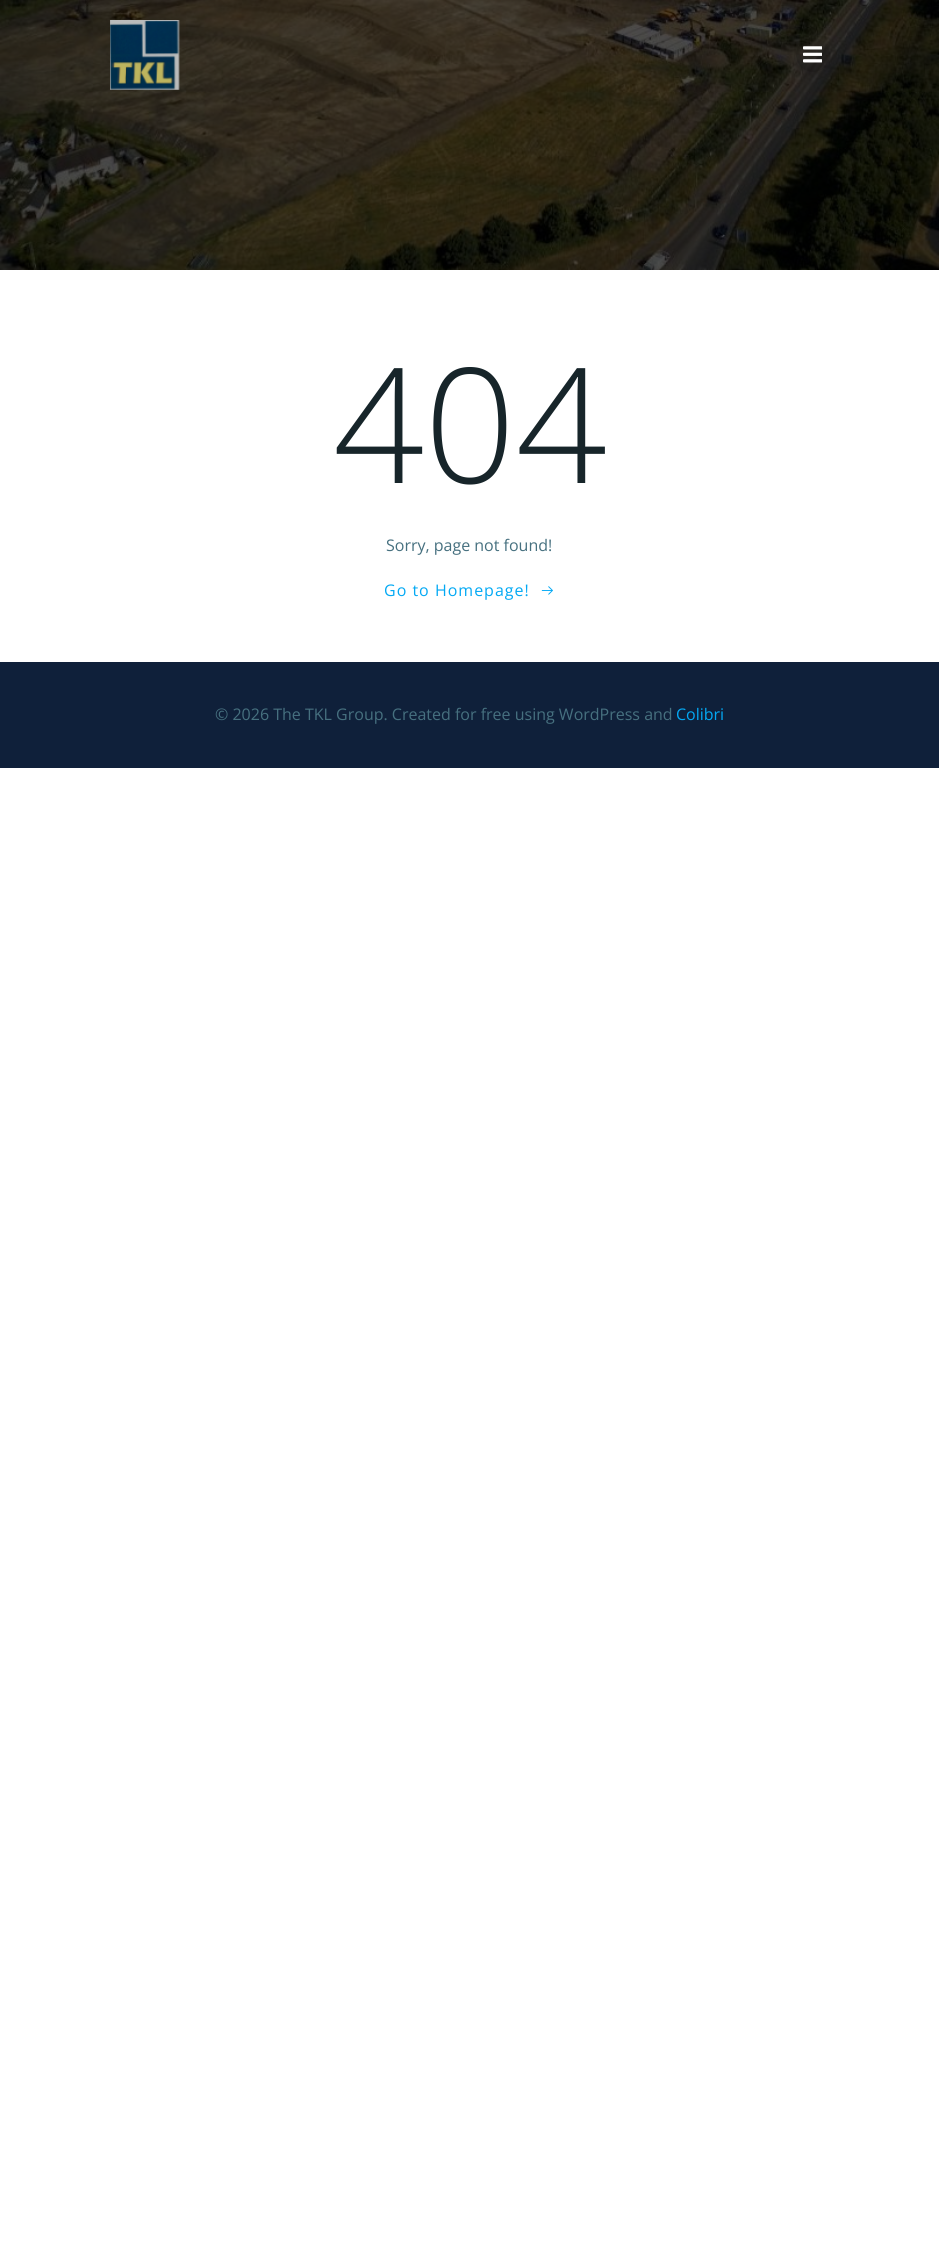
import math
import cairocffi as cairo

surface = cairo.ImageSurface(cairo.FORMAT_RGB24, 939, 2242)
ctx = cairo.Context(surface)
options = cairo.FontOptions()
options.set_hint_metrics(cairo.HINT_METRICS_OFF)
options.set_hint_style(cairo.HINT_STYLE_NONE)
ctx.set_font_options(options)
ctx.set_miter_limit(4)


def rgb(r, g, b):
    ctx.set_source_rgb(r / 255, g / 255, b / 255)


def face(family, size, italic, bold):
    ctx.select_font_face(family, cairo.FONT_SLANT_ITALIC if italic else cairo.FONT_SLANT_NORMAL, cairo.FONT_WEIGHT_BOLD if bold else cairo.FONT_WEIGHT_NORMAL)
    ctx.set_font_size(size)


def label(x, y, s):
    ctx.move_to(x, y)
    ctx.show_text(s)


def tracked(x, y, s, letter, word):
    ctx.move_to(x, y)
    for ch in s:
        ctx.show_text(ch)
        ctx.rel_move_to(letter + word * (ch == ' '), 0)


def rect(x, y, w, h):
    ctx.rectangle(x, y, w, h)
    ctx.fill()


def image(path, x, y, w, h):
    ctx.save()
    ctx.set_source_surface(cairo.ImageSurface.create_from_png(path), x, y)
    ctx.rectangle(x, y, w, h)
    ctx.fill()
    ctx.restore()


rgb(255, 255, 255)
ctx.paint()
image('image0.png', 0, 0, 939, 270)
image('image1.png', 110, 20, 70, 70)
ctx.set_source_rgba(0, 0, 0, 0.1)
ctx.arc(813, 55, 17, 0, 2 * math.pi)
ctx.fill()
image('image2.png', 803, 46, 19, 17)
face('Open Sans Light', 160, 0, 0)
rgb(23, 37, 42)
label(333, 483, '404')
face('Open Sans', 16, 0, 0)
rgb(70, 112, 127)
label(386, 551, 'Sorry, page not found!')
rgb(3, 169, 244)
tracked(384, 596, 'Go to Homepage!', 1, 0)
image('image3.png', 541, 586, 12, 9)
rgb(15, 32, 58)
rect(0, 662, 939, 106)
rgb(70, 112, 127)
label(215, 720, '© 2026 The TKL Group. Created for free using WordPress and')
rgb(3, 169, 244)
label(676, 720, 'Colibri')
surface.write_to_png('render.png')
